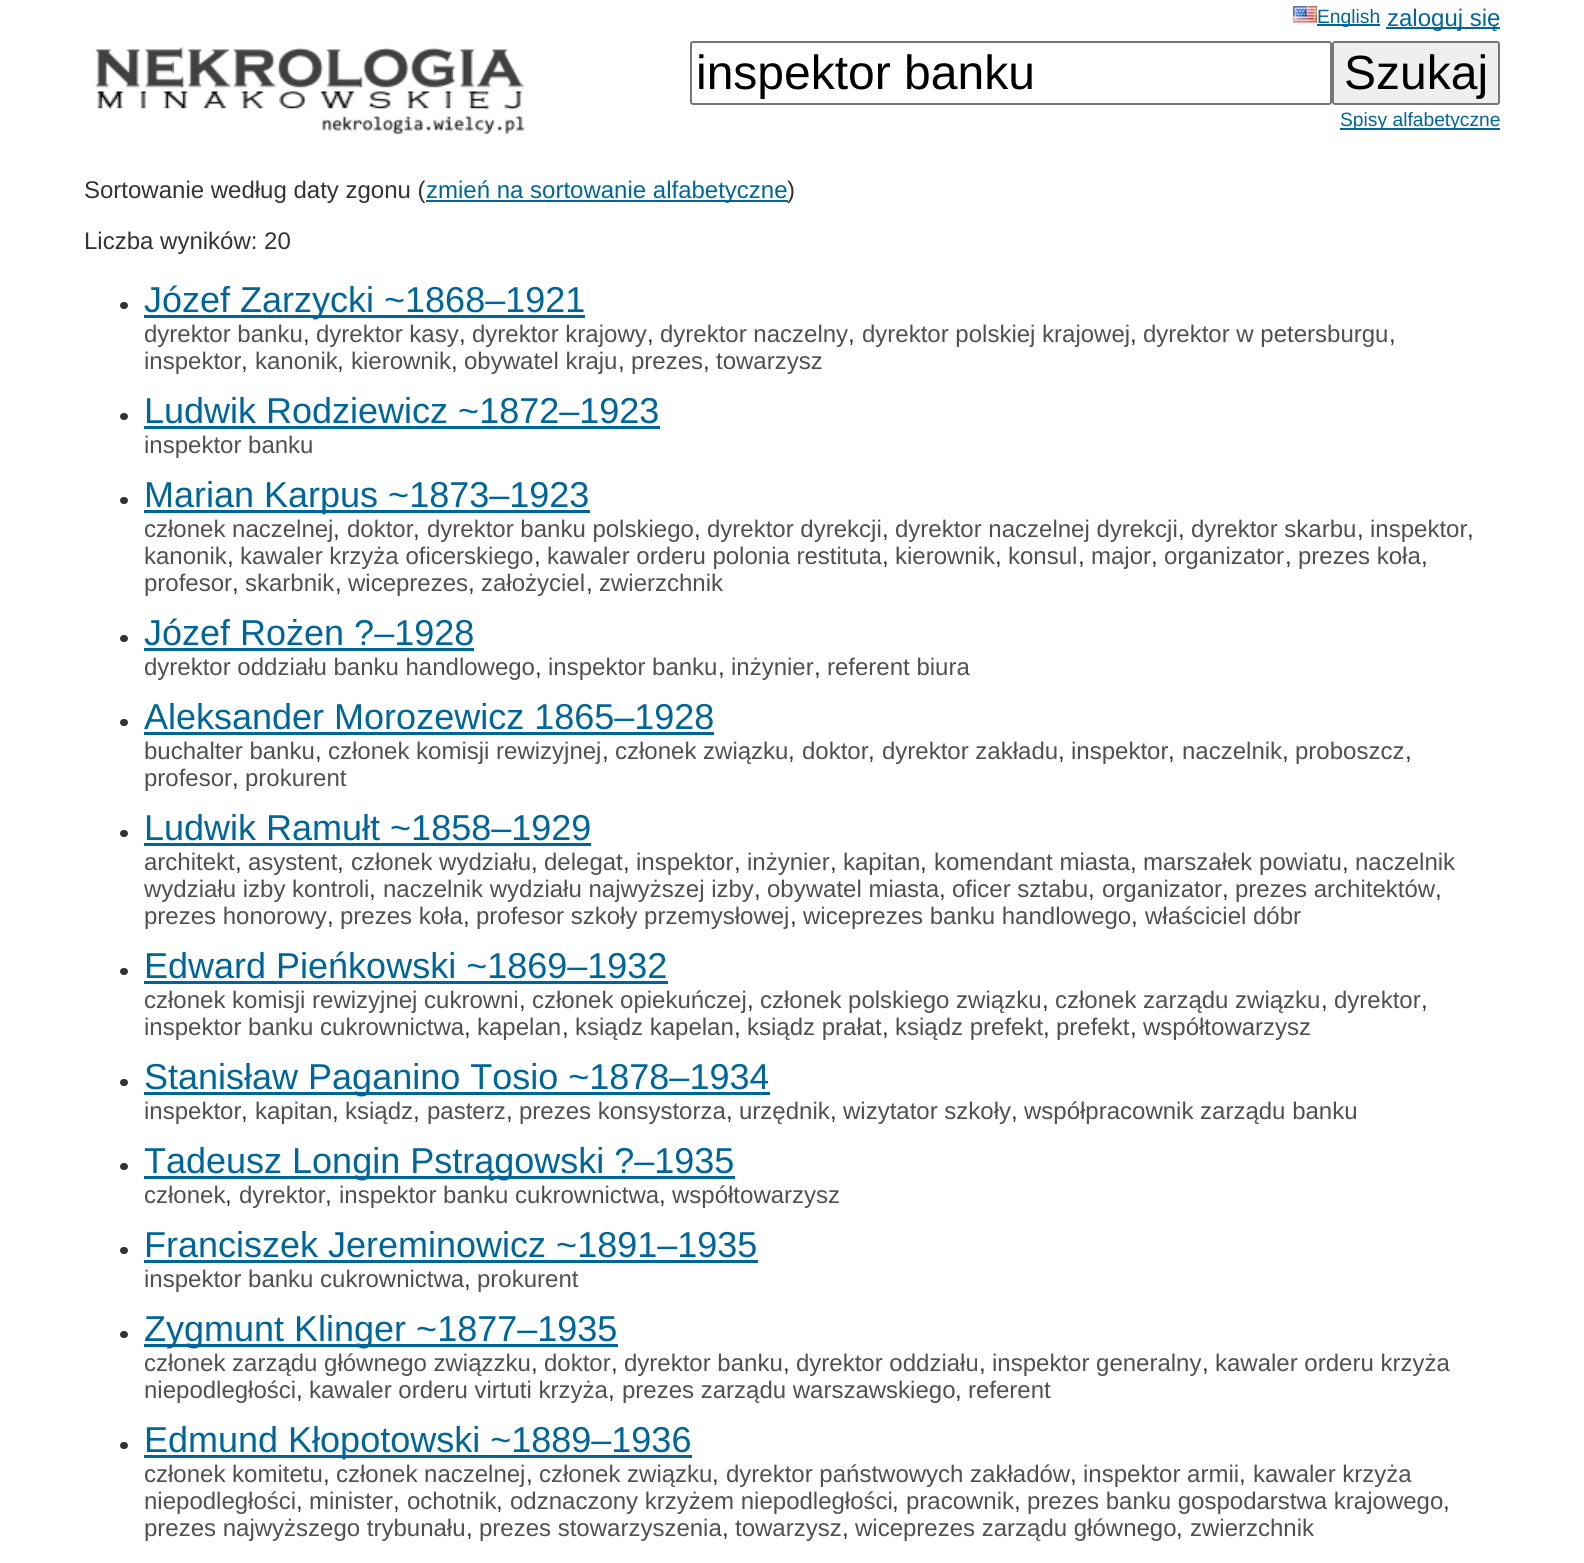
import math
import cairocffi as cairo

surface = cairo.ImageSurface(cairo.FORMAT_RGB24, 1584, 1563)
ctx = cairo.Context(surface)
options = cairo.FontOptions()
options.set_hint_metrics(cairo.HINT_METRICS_OFF)
options.set_hint_style(cairo.HINT_STYLE_NONE)
ctx.set_font_options(options)
ctx.set_miter_limit(4)


def rgb(r, g, b):
    ctx.set_source_rgb(r / 255, g / 255, b / 255)


def face(family, size, italic, bold):
    ctx.select_font_face(family, cairo.FONT_SLANT_ITALIC if italic else cairo.FONT_SLANT_NORMAL, cairo.FONT_WEIGHT_BOLD if bold else cairo.FONT_WEIGHT_NORMAL)
    ctx.set_font_size(size)


def label(x, y, s):
    ctx.move_to(x, y)
    ctx.show_text(s)


def rect(x, y, w, h):
    ctx.rectangle(x, y, w, h)
    ctx.fill()


def rrect(x, y, w, h, r):
    ctx.new_sub_path()
    for i, (u, v) in enumerate([(x + w - r, y + h - r), (x + r, y + h - r), (x + r, y + r), (x + w - r, y + r)]):
        ctx.arc(u, v, r, i * math.pi / 2, (i + 1) * math.pi / 2)
    ctx.close_path()


def image(path, x, y, w, h):
    ctx.save()
    ctx.set_source_surface(cairo.ImageSurface.create_from_png(path), x, y)
    ctx.rectangle(x, y, w, h)
    ctx.fill()
    ctx.restore()


rgb(255, 255, 255)
ctx.paint()
image('image0.png', 1293, 6, 24, 17)
rgb(0, 102, 153)
rect(1317, 24, 63, 2)
face('Liberation Sans', 19.25, 0, 0)
label(1317, 23, 'English')
rect(1386, 27, 114, 2)
face('Liberation Sans', 24, 0, 0)
label(1387, 26, 'zaloguj się')
image('image1.png', 95, 46, 430, 89)
rrect(691, 42, 640, 62, 2)
rgb(118, 118, 118)
ctx.stroke()
face('Liberation Sans', 48, 0, 0)
rgb(0, 0, 0)
label(696, 89, 'inspektor banku')
rgb(239, 239, 239)
rrect(1333, 42, 166, 62, 2)
ctx.fill_preserve()
rgb(118, 118, 118)
ctx.stroke()
rgb(0, 0, 0)
label(1344, 89, 'Szukaj')
rgb(0, 102, 153)
rect(1340, 128, 160, 2)
face('Liberation Sans', 19.25, 0, 0)
label(1340, 126, 'Spisy alfabetyczne')
face('Liberation Sans', 24, 0, 0)
rgb(51, 51, 51)
label(84, 198, 'Sortowanie według daty zgonu (')
rgb(0, 102, 153)
rect(426, 200, 362, 2)
label(426, 198, 'zmień na sortowanie alfabetyczne')
rgb(51, 51, 51)
label(787, 198, ')')
label(84, 249, 'Liczba wyników: 20')
rrect(120, 302, 8, 7, 3.5)
ctx.fill()
rgb(0, 102, 153)
rect(144, 315, 441, 3)
face('Liberation Sans', 36, 0, 0)
label(144, 312, 'Józef Zarzycki ~1868–1921')
face('Liberation Sans', 24, 0, 0)
rgb(80, 80, 80)
label(144, 342, 'dyrektor banku')
rgb(51, 51, 51)
label(303, 342, ',')
rgb(80, 80, 80)
label(316, 342, 'dyrektor kasy')
rgb(51, 51, 51)
label(459, 342, ',')
rgb(80, 80, 80)
label(472, 342, 'dyrektor krajowy')
rgb(51, 51, 51)
label(647, 342, ',')
rgb(80, 80, 80)
label(660, 342, 'dyrektor naczelny')
rgb(51, 51, 51)
label(848, 342, ',')
rgb(80, 80, 80)
label(862, 342, 'dyrektor polskiej krajowej')
rgb(51, 51, 51)
label(1130, 342, ',')
rgb(80, 80, 80)
label(1143, 342, 'dyrektor w petersburgu')
rgb(51, 51, 51)
label(1389, 342, ',')
rgb(80, 80, 80)
label(144, 369, 'inspektor')
rgb(51, 51, 51)
label(241, 369, ',')
rgb(80, 80, 80)
label(255, 369, 'kanonik')
rgb(51, 51, 51)
label(337, 369, ',')
rgb(80, 80, 80)
label(351, 369, 'kierownik')
rgb(51, 51, 51)
label(451, 369, ',')
rgb(80, 80, 80)
label(464, 369, 'obywatel kraju')
rgb(51, 51, 51)
label(618, 369, ',')
rgb(80, 80, 80)
label(631, 369, 'prezes')
rgb(51, 51, 51)
label(703, 369, ',')
rgb(80, 80, 80)
label(716, 369, 'towarzysz')
rgb(51, 51, 51)
rrect(120, 413, 8, 7, 3.5)
ctx.fill()
face('Liberation Sans', 36, 0, 0)
rgb(0, 102, 153)
label(144, 423, 'Ludwik Rodziewicz ~1872–1923')
rect(144, 426, 516, 3)
face('Liberation Sans', 24, 0, 0)
rgb(80, 80, 80)
label(144, 453, 'inspektor banku')
rgb(51, 51, 51)
rrect(120, 497, 8, 7, 3.5)
ctx.fill()
rgb(0, 102, 153)
rect(144, 510, 446, 3)
face('Liberation Sans', 36, 0, 0)
label(144, 507, 'Marian Karpus ~1873–1923')
face('Liberation Sans', 24, 0, 0)
rgb(80, 80, 80)
label(144, 537, 'członek naczelnej')
rgb(51, 51, 51)
label(333, 537, ',')
rgb(80, 80, 80)
label(347, 537, 'doktor')
rgb(51, 51, 51)
label(413, 537, ',')
rgb(80, 80, 80)
label(427, 537, 'dyrektor banku polskiego')
rgb(51, 51, 51)
label(694, 537, ',')
rgb(80, 80, 80)
label(707, 537, 'dyrektor dyrekcji')
rgb(51, 51, 51)
label(882, 537, ',')
rgb(80, 80, 80)
label(895, 537, 'dyrektor naczelnej dyrekcji')
rgb(51, 51, 51)
label(1178, 537, ',')
rgb(80, 80, 80)
label(1191, 537, 'dyrektor skarbu')
rgb(51, 51, 51)
label(1357, 537, ',')
rgb(80, 80, 80)
label(1370, 537, 'inspektor')
rgb(51, 51, 51)
label(1467, 537, ',')
rgb(80, 80, 80)
label(144, 564, 'kanonik')
rgb(51, 51, 51)
label(227, 564, ',')
rgb(80, 80, 80)
label(240, 564, 'kawaler krzyża oficerskiego')
rgb(51, 51, 51)
label(534, 564, ',')
rgb(80, 80, 80)
label(547, 564, 'kawaler orderu polonia restituta')
rgb(51, 51, 51)
label(882, 564, ',')
rgb(80, 80, 80)
label(895, 564, 'kierownik')
rgb(51, 51, 51)
label(995, 564, ',')
rgb(80, 80, 80)
label(1008, 564, 'konsul')
rgb(51, 51, 51)
label(1078, 564, ',')
rgb(80, 80, 80)
label(1091, 564, 'major')
rgb(51, 51, 51)
label(1151, 564, ',')
rgb(80, 80, 80)
label(1164, 564, 'organizator')
rgb(51, 51, 51)
label(1285, 564, ',')
rgb(80, 80, 80)
label(1298, 564, 'prezes koła')
rgb(51, 51, 51)
label(1421, 564, ',')
rgb(80, 80, 80)
label(144, 591, 'profesor')
rgb(51, 51, 51)
label(232, 591, ',')
rgb(80, 80, 80)
label(245, 591, 'skarbnik')
rgb(51, 51, 51)
label(335, 591, ',')
rgb(80, 80, 80)
label(348, 591, 'wiceprezes')
rgb(51, 51, 51)
label(468, 591, ',')
rgb(80, 80, 80)
label(481, 591, 'założyciel')
rgb(51, 51, 51)
label(586, 591, ',')
rgb(80, 80, 80)
label(599, 591, 'zwierzchnik')
rgb(51, 51, 51)
rrect(120, 635, 8, 7, 3.5)
ctx.fill()
face('Liberation Sans', 36, 0, 0)
rgb(0, 102, 153)
label(144, 645, 'Józef Rożen ?–1928')
rect(144, 648, 330, 3)
face('Liberation Sans', 24, 0, 0)
rgb(80, 80, 80)
label(144, 675, 'dyrektor oddziału banku handlowego')
rgb(51, 51, 51)
label(535, 675, ',')
rgb(80, 80, 80)
label(548, 675, 'inspektor banku')
rgb(51, 51, 51)
label(718, 675, ',')
rgb(80, 80, 80)
label(731, 675, 'inżynier')
rgb(51, 51, 51)
label(814, 675, ',')
rgb(80, 80, 80)
label(827, 675, 'referent biura')
rgb(51, 51, 51)
rrect(120, 719, 8, 7, 3.5)
ctx.fill()
face('Liberation Sans', 36, 0, 0)
rgb(0, 102, 153)
label(144, 729, 'Aleksander Morozewicz 1865–1928')
rect(144, 732, 570, 3)
face('Liberation Sans', 24, 0, 0)
rgb(80, 80, 80)
label(144, 759, 'buchalter banku')
rgb(51, 51, 51)
label(315, 759, ',')
rgb(80, 80, 80)
label(328, 759, 'członek komisji rewizyjnej')
rgb(51, 51, 51)
label(602, 759, ',')
rgb(80, 80, 80)
label(615, 759, 'członek związku')
rgb(51, 51, 51)
label(788, 759, ',')
rgb(80, 80, 80)
label(802, 759, 'doktor')
rgb(51, 51, 51)
label(868, 759, ',')
rgb(80, 80, 80)
label(882, 759, 'dyrektor zakładu')
rgb(51, 51, 51)
label(1058, 759, ',')
rgb(80, 80, 80)
label(1071, 759, 'inspektor')
rgb(51, 51, 51)
label(1168, 759, ',')
rgb(80, 80, 80)
label(1182, 759, 'naczelnik')
rgb(51, 51, 51)
label(1282, 759, ',')
rgb(80, 80, 80)
label(1295, 759, 'proboszcz')
rgb(51, 51, 51)
label(1405, 759, ',')
rgb(80, 80, 80)
label(144, 786, 'profesor')
rgb(51, 51, 51)
label(232, 786, ',')
rgb(80, 80, 80)
label(245, 786, 'prokurent')
rgb(51, 51, 51)
rrect(120, 830, 8, 7, 3.5)
ctx.fill()
face('Liberation Sans', 36, 0, 0)
rgb(0, 102, 153)
label(144, 840, 'Ludwik Ramułt ~1858–1929')
rect(144, 843, 447, 3)
face('Liberation Sans', 24, 0, 0)
rgb(80, 80, 80)
label(144, 870, 'architekt')
rgb(51, 51, 51)
label(235, 870, ',')
rgb(80, 80, 80)
label(248, 870, 'asystent')
rgb(51, 51, 51)
label(337, 870, ',')
rgb(80, 80, 80)
label(351, 870, 'członek wydziału')
rgb(51, 51, 51)
label(531, 870, ',')
rgb(80, 80, 80)
label(544, 870, 'delegat')
rgb(51, 51, 51)
label(623, 870, ',')
rgb(80, 80, 80)
label(636, 870, 'inspektor')
rgb(51, 51, 51)
label(734, 870, ',')
rgb(80, 80, 80)
label(747, 870, 'inżynier')
rgb(51, 51, 51)
label(830, 870, ',')
rgb(80, 80, 80)
label(843, 870, 'kapitan')
rgb(51, 51, 51)
label(920, 870, ',')
rgb(80, 80, 80)
label(934, 870, 'komendant miasta')
rgb(51, 51, 51)
label(1130, 870, ',')
rgb(80, 80, 80)
label(1143, 870, 'marszałek powiatu')
rgb(51, 51, 51)
label(1342, 870, ',')
rgb(80, 80, 80)
label(1355, 870, 'naczelnik')
label(144, 897, 'wydziału izby kontroli')
rgb(51, 51, 51)
label(369, 897, ',')
rgb(80, 80, 80)
label(383, 897, 'naczelnik wydziału najwyższej izby')
rgb(51, 51, 51)
label(754, 897, ',')
rgb(80, 80, 80)
label(767, 897, 'obywatel miasta')
rgb(51, 51, 51)
label(939, 897, ',')
rgb(80, 80, 80)
label(952, 897, 'oficer sztabu')
rgb(51, 51, 51)
label(1088, 897, ',')
rgb(80, 80, 80)
label(1102, 897, 'organizator')
rgb(51, 51, 51)
label(1222, 897, ',')
rgb(80, 80, 80)
label(1235, 897, 'prezes architektów')
rgb(51, 51, 51)
label(1435, 897, ',')
rgb(80, 80, 80)
label(144, 924, 'prezes honorowy')
rgb(51, 51, 51)
label(327, 924, ',')
rgb(80, 80, 80)
label(340, 924, 'prezes koła')
rgb(51, 51, 51)
label(463, 924, ',')
rgb(80, 80, 80)
label(476, 924, 'profesor szkoły przemysłowej')
rgb(51, 51, 51)
label(790, 924, ',')
rgb(80, 80, 80)
label(803, 924, 'wiceprezes banku handlowego')
rgb(51, 51, 51)
label(1131, 924, ',')
rgb(80, 80, 80)
label(1145, 924, 'właściciel dóbr')
rgb(51, 51, 51)
rrect(120, 968, 8, 7, 3.5)
ctx.fill()
face('Liberation Sans', 36, 0, 0)
rgb(0, 102, 153)
label(144, 978, 'Edward Pieńkowski ~1869–1932')
rect(144, 981, 524, 3)
face('Liberation Sans', 24, 0, 0)
rgb(80, 80, 80)
label(144, 1008, 'członek komisji rewizyjnej cukrowni')
rgb(51, 51, 51)
label(519, 1008, ',')
rgb(80, 80, 80)
label(532, 1008, 'członek opiekuńczej')
rgb(51, 51, 51)
label(747, 1008, ',')
rgb(80, 80, 80)
label(760, 1008, 'członek polskiego związku')
rgb(51, 51, 51)
label(1042, 1008, ',')
rgb(80, 80, 80)
label(1055, 1008, 'członek zarządu związku')
rgb(51, 51, 51)
label(1321, 1008, ',')
rgb(80, 80, 80)
label(1334, 1008, 'dyrektor')
rgb(51, 51, 51)
label(1421, 1008, ',')
rgb(80, 80, 80)
label(144, 1035, 'inspektor banku cukrownictwa')
rgb(51, 51, 51)
label(464, 1035, ',')
rgb(80, 80, 80)
label(477, 1035, 'kapelan')
rgb(51, 51, 51)
label(562, 1035, ',')
rgb(80, 80, 80)
label(575, 1035, 'ksiądz kapelan')
rgb(51, 51, 51)
label(734, 1035, ',')
rgb(80, 80, 80)
label(747, 1035, 'ksiądz prałat')
rgb(51, 51, 51)
label(882, 1035, ',')
rgb(80, 80, 80)
label(895, 1035, 'ksiądz prefekt')
rgb(51, 51, 51)
label(1043, 1035, ',')
rgb(80, 80, 80)
label(1056, 1035, 'prefekt')
rgb(51, 51, 51)
label(1130, 1035, ',')
rgb(80, 80, 80)
label(1143, 1035, 'współtowarzysz')
rgb(51, 51, 51)
rrect(120, 1079, 8, 7, 3.5)
ctx.fill()
rgb(0, 102, 153)
rect(144, 1092, 626, 3)
face('Liberation Sans', 36, 0, 0)
label(144, 1089, 'Stanisław Paganino Tosio ~1878–1934')
face('Liberation Sans', 24, 0, 0)
rgb(80, 80, 80)
label(144, 1119, 'inspektor')
rgb(51, 51, 51)
label(241, 1119, ',')
rgb(80, 80, 80)
label(255, 1119, 'kapitan')
rgb(51, 51, 51)
label(332, 1119, ',')
rgb(80, 80, 80)
label(345, 1119, 'ksiądz')
rgb(51, 51, 51)
label(413, 1119, ',')
rgb(80, 80, 80)
label(427, 1119, 'pasterz')
rgb(51, 51, 51)
label(506, 1119, ',')
rgb(80, 80, 80)
label(519, 1119, 'prezes konsystorza')
rgb(51, 51, 51)
label(726, 1119, ',')
rgb(80, 80, 80)
label(739, 1119, 'urzędnik')
rgb(51, 51, 51)
label(830, 1119, ',')
rgb(80, 80, 80)
label(843, 1119, 'wizytator szkoły')
rgb(51, 51, 51)
label(1011, 1119, ',')
rgb(80, 80, 80)
label(1024, 1119, 'współpracownik zarządu banku')
rgb(51, 51, 51)
rrect(120, 1163, 8, 7, 3.5)
ctx.fill()
rgb(0, 102, 153)
rect(144, 1176, 591, 3)
face('Liberation Sans', 36, 0, 0)
label(144, 1173, 'Tadeusz Longin Pstrągowski ?–1935')
face('Liberation Sans', 24, 0, 0)
rgb(80, 80, 80)
label(144, 1203, 'członek')
rgb(51, 51, 51)
label(225, 1203, ',')
rgb(80, 80, 80)
label(239, 1203, 'dyrektor')
rgb(51, 51, 51)
label(325, 1203, ',')
rgb(80, 80, 80)
label(339, 1203, 'inspektor banku cukrownictwa')
rgb(51, 51, 51)
label(659, 1203, ',')
rgb(80, 80, 80)
label(672, 1203, 'współtowarzysz')
rgb(51, 51, 51)
rrect(120, 1247, 8, 7, 3.5)
ctx.fill()
face('Liberation Sans', 36, 0, 0)
rgb(0, 102, 153)
label(144, 1257, 'Franciszek Jereminowicz ~1891–1935')
rect(144, 1260, 614, 3)
face('Liberation Sans', 24, 0, 0)
rgb(80, 80, 80)
label(144, 1287, 'inspektor banku cukrownictwa')
rgb(51, 51, 51)
label(464, 1287, ',')
rgb(80, 80, 80)
label(477, 1287, 'prokurent')
rgb(51, 51, 51)
rrect(120, 1331, 8, 7, 3.5)
ctx.fill()
rgb(0, 102, 153)
rect(144, 1344, 474, 3)
face('Liberation Sans', 36, 0, 0)
label(144, 1341, 'Zygmunt Klinger ~1877–1935')
face('Liberation Sans', 24, 0, 0)
rgb(80, 80, 80)
label(144, 1371, 'członek zarządu głównego związzku')
rgb(51, 51, 51)
label(531, 1371, ',')
rgb(80, 80, 80)
label(544, 1371, 'doktor')
rgb(51, 51, 51)
label(611, 1371, ',')
rgb(80, 80, 80)
label(624, 1371, 'dyrektor banku')
rgb(51, 51, 51)
label(783, 1371, ',')
rgb(80, 80, 80)
label(796, 1371, 'dyrektor oddziału')
rgb(51, 51, 51)
label(979, 1371, ',')
rgb(80, 80, 80)
label(992, 1371, 'inspektor generalny')
rgb(51, 51, 51)
label(1202, 1371, ',')
rgb(80, 80, 80)
label(1215, 1371, 'kawaler orderu krzyża')
label(144, 1398, 'niepodległości')
rgb(51, 51, 51)
label(296, 1398, ',')
rgb(80, 80, 80)
label(309, 1398, 'kawaler orderu virtuti krzyża')
rgb(51, 51, 51)
label(608, 1398, ',')
rgb(80, 80, 80)
label(622, 1398, 'prezes zarządu warszawskiego')
rgb(51, 51, 51)
label(955, 1398, ',')
rgb(80, 80, 80)
label(968, 1398, 'referent')
rgb(51, 51, 51)
rrect(120, 1442, 8, 7, 3.5)
ctx.fill()
rgb(0, 102, 153)
rect(144, 1455, 548, 3)
face('Liberation Sans', 36, 0, 0)
label(144, 1452, 'Edmund Kłopotowski ~1889–1936')
face('Liberation Sans', 24, 0, 0)
rgb(80, 80, 80)
label(144, 1482, 'członek komitetu')
rgb(51, 51, 51)
label(323, 1482, ',')
rgb(80, 80, 80)
label(336, 1482, 'członek naczelnej')
rgb(51, 51, 51)
label(526, 1482, ',')
rgb(80, 80, 80)
label(539, 1482, 'członek związku')
rgb(51, 51, 51)
label(712, 1482, ',')
rgb(80, 80, 80)
label(726, 1482, 'dyrektor państwowych zakładów')
rgb(51, 51, 51)
label(1070, 1482, ',')
rgb(80, 80, 80)
label(1083, 1482, 'inspektor armii')
rgb(51, 51, 51)
label(1239, 1482, ',')
rgb(80, 80, 80)
label(1253, 1482, 'kawaler krzyża')
label(144, 1509, 'niepodległości')
rgb(51, 51, 51)
label(296, 1509, ',')
rgb(80, 80, 80)
label(309, 1509, 'minister')
rgb(51, 51, 51)
label(393, 1509, ',')
rgb(80, 80, 80)
label(407, 1509, 'ochotnik')
rgb(51, 51, 51)
label(496, 1509, ',')
rgb(80, 80, 80)
label(510, 1509, 'odznaczony krzyżem niepodległości')
rgb(51, 51, 51)
label(892, 1509, ',')
rgb(80, 80, 80)
label(906, 1509, 'pracownik')
rgb(51, 51, 51)
label(1014, 1509, ',')
rgb(80, 80, 80)
label(1027, 1509, 'prezes banku gospodarstwa krajowego')
rgb(51, 51, 51)
label(1443, 1509, ',')
rgb(80, 80, 80)
label(144, 1536, 'prezes najwyższego trybunału')
rgb(51, 51, 51)
label(466, 1536, ',')
rgb(80, 80, 80)
label(479, 1536, 'prezes stowarzyszenia')
rgb(51, 51, 51)
label(722, 1536, ',')
rgb(80, 80, 80)
label(735, 1536, 'towarzysz')
rgb(51, 51, 51)
label(842, 1536, ',')
rgb(80, 80, 80)
label(855, 1536, 'wiceprezes zarządu głównego')
rgb(51, 51, 51)
label(1176, 1536, ',')
rgb(80, 80, 80)
label(1190, 1536, 'zwierzchnik')
surface.write_to_png('render.png')
